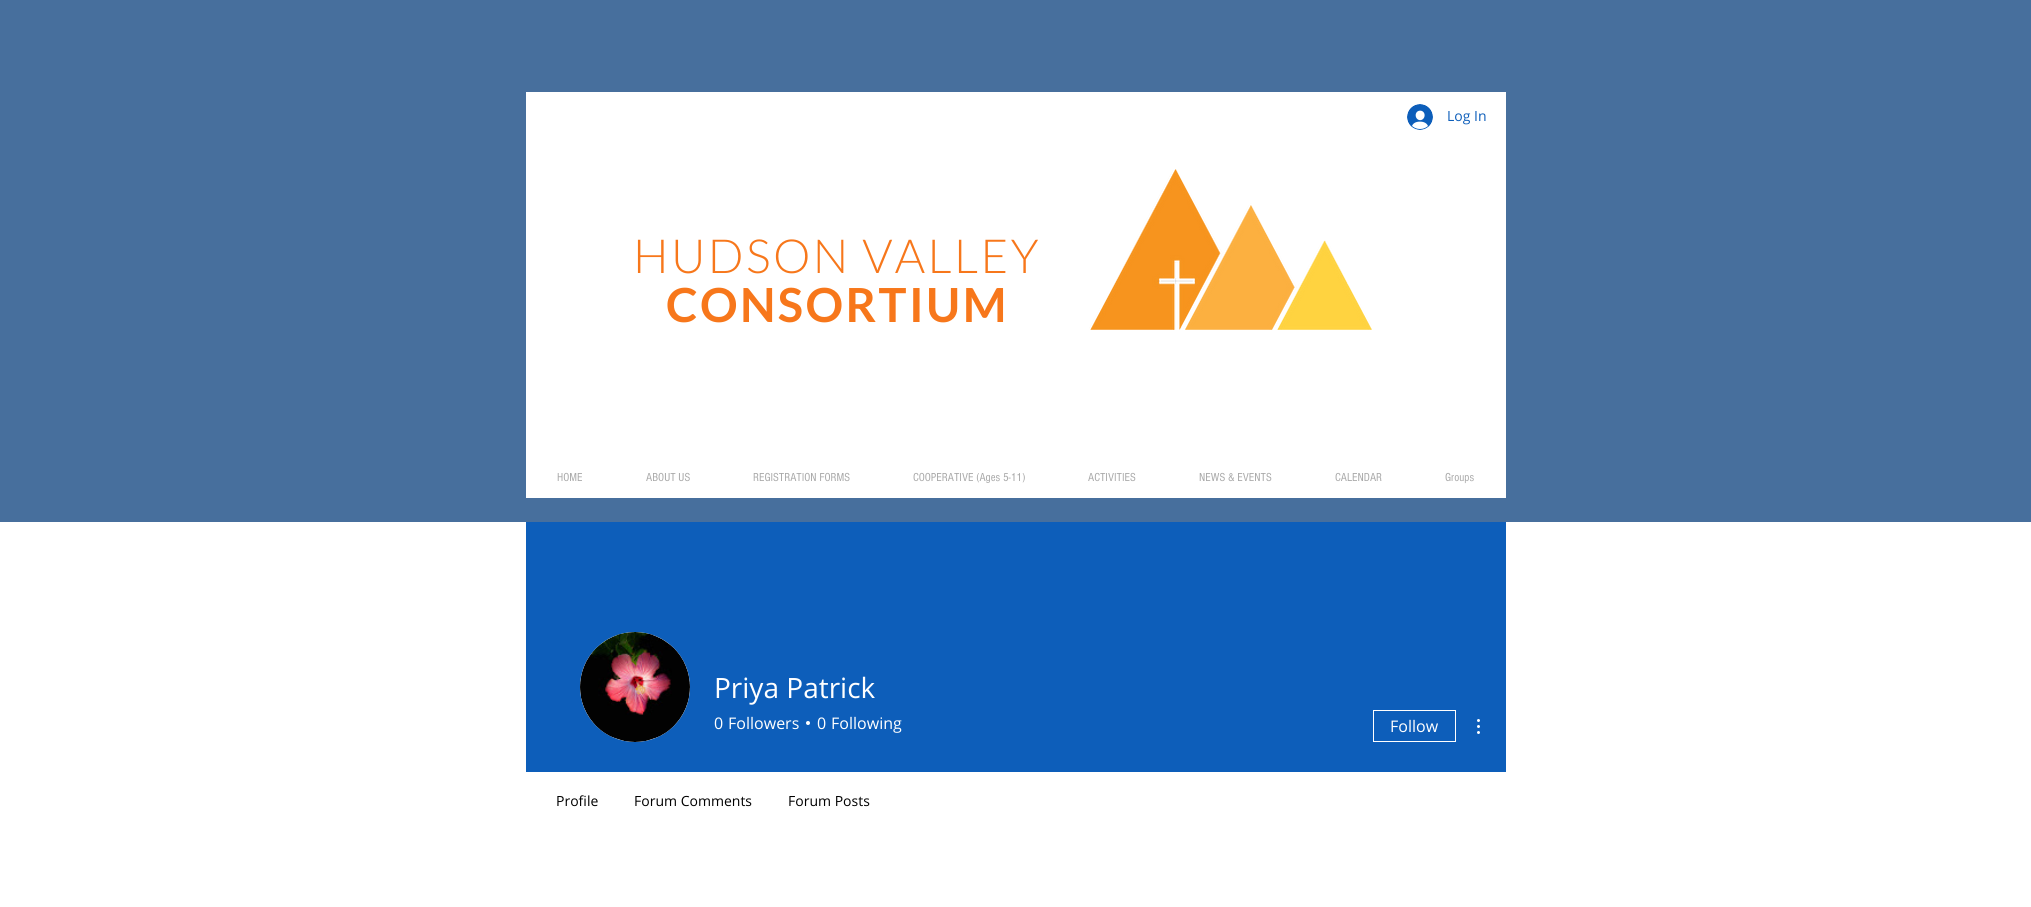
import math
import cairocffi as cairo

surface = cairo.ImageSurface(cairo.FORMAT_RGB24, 2031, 907)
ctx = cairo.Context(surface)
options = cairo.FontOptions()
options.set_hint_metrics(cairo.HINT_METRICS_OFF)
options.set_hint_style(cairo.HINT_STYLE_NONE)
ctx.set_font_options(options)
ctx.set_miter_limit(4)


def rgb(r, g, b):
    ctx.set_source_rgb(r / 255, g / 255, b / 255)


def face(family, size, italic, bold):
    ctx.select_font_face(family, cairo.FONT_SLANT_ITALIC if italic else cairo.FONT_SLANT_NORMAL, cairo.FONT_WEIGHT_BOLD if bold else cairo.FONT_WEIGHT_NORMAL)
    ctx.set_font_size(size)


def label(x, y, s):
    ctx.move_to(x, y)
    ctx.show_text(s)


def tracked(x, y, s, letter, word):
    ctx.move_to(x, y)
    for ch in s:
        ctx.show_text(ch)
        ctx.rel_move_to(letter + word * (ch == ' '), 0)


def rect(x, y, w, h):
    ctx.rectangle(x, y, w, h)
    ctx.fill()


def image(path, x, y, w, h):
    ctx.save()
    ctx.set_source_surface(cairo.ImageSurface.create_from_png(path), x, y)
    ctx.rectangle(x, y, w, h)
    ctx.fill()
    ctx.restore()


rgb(255, 255, 255)
ctx.paint()
rgb(71, 111, 157)
rect(0, 0, 2031, 522)
rgb(255, 255, 255)
rect(526, 92, 980, 406)
image('image0.png', 1407, 104, 26, 26)
face('Open Sans', 14, 0, 0)
rgb(13, 94, 186)
label(1447, 121, 'Log In')
face('Lato Light', 47, 0, 0)
rgb(247, 119, 27)
tracked(633, 273, 'HUDSON VALLEY', 2.4, 0)
face('Lato', 47, 0, 1)
tracked(666, 322, 'CONSORTIUM', 2.4, 0)
image('image1.png', 1089, 169, 283, 161)
face('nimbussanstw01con', 12, 0, 0)
rgb(169, 169, 169)
label(557, 481, 'HOME')
label(646, 481, 'ABOUT US')
label(753, 481, 'REGISTRATION FORMS')
label(913, 481, 'COOPERATIVE (Ages 5-11)')
label(1088, 481, 'ACTIVITIES')
label(1199, 481, 'NEWS & EVENTS')
label(1335, 481, 'CALENDAR')
label(1445, 481, 'Groups')
rgb(13, 94, 186)
rect(526, 522, 980, 250)
rgb(216, 216, 216)
ctx.new_path()
ctx.arc(635, 687, 55, 0, 2 * math.pi)
ctx.fill()
image('image2.png', 580, 632, 110, 110)
face('Open Sans', 28, 0, 0)
rgb(255, 255, 255)
label(714, 698, 'Priya Patrick')
face('Open Sans', 16, 0, 0)
label(714, 729, '0')
label(728, 729, 'Followers')
ctx.new_path()
ctx.arc(808, 723, 2, 0, 2 * math.pi)
ctx.fill()
label(817, 729, '0')
label(831, 729, 'Following')
ctx.rectangle(1373.5, 710.5, 82, 31)
ctx.set_line_width(1)
ctx.stroke()
label(1390, 732, 'Follow')
image('image3.png', 1477, 719, 3, 15)
face('Open Sans', 14, 0, 0)
rgb(0, 0, 0)
label(556, 806, 'Profile')
label(634, 806, 'Forum Comments')
label(788, 806, 'Forum Posts')
surface.write_to_png('render.png')
